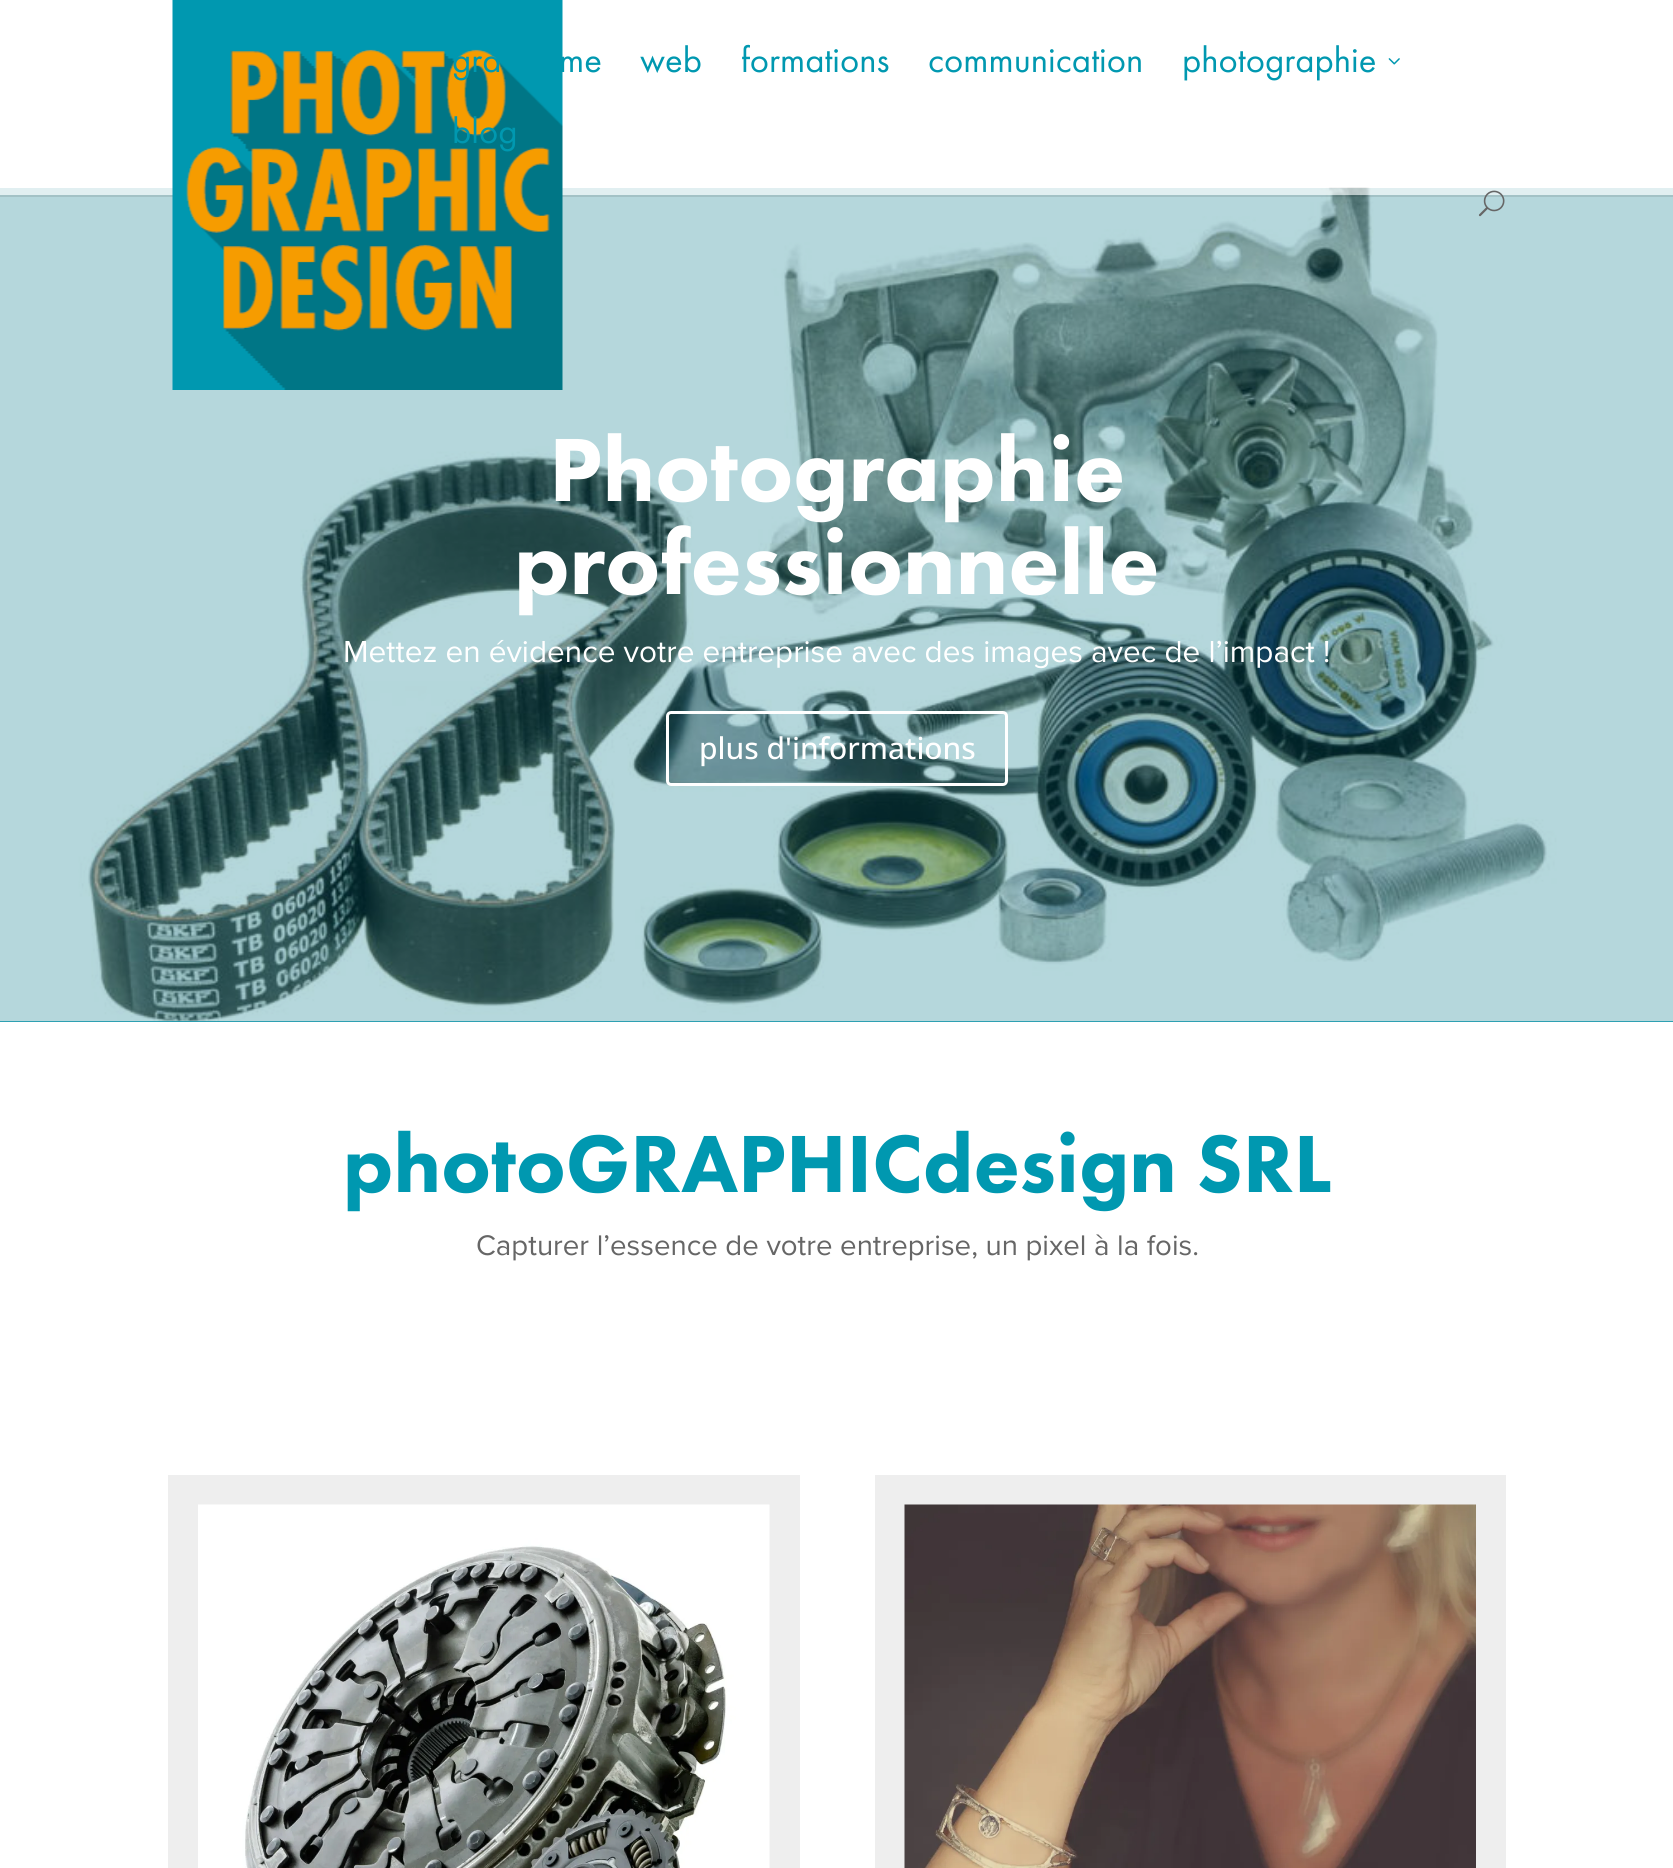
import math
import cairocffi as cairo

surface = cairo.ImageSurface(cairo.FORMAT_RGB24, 1673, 1868)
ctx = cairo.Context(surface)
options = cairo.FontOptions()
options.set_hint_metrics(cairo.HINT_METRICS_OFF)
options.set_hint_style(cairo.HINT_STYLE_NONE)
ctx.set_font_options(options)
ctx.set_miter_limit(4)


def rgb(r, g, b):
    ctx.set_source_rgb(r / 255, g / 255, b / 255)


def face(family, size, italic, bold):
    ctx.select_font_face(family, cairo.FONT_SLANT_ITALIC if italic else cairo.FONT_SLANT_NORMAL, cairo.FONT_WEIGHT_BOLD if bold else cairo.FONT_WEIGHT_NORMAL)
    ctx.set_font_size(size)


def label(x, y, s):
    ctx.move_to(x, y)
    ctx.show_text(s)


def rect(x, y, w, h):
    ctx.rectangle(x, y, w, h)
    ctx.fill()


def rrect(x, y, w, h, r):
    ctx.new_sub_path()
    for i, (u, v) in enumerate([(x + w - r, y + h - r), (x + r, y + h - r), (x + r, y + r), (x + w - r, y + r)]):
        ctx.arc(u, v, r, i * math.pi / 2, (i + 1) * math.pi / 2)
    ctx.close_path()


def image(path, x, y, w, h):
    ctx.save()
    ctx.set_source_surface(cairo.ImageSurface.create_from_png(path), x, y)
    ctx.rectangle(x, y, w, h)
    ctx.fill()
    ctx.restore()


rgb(255, 255, 255)
ctx.paint()
rgb(0, 142, 164)
rect(0, 1021, 1673, 1)
image('image3.png', 0, 187, 1673, 835)
ctx.set_source_rgba(0, 0, 0, 0.1)
rect(0, 195, 1673, 2)
ctx.set_source_rgba(1, 1, 1, 0.6)
rect(0, 187, 1673, 8)
image('image0.png', 172, 0, 391, 390)
face('Futura PT', 36.75, 0, 0)
rgb(0, 152, 176)
label(452, 72, 'gra')
label(559, 72, 'me')
label(640, 72, 'web')
label(741, 72, 'formations')
label(928, 72, 'communication')
label(1182, 72, 'photographie')
image('image1.png', 1388, 58, 12, 7)
label(452, 143, 'blog')
image('image2.png', 1478, 190, 27, 27)
face('Futura PT Black', 93, 0, 0)
rgb(255, 255, 255)
label(549, 501, 'Photographie')
label(514, 594, 'professionnelle')
face('Proxima Nova', 31.5, 0, 0)
label(343, 662, 'Mettez en évidence votre entreprise avec des images avec de l’impact !')
rrect(667.5, 712.5, 339, 72, 3.5)
ctx.set_line_width(3)
ctx.stroke()
face('Open Sans Medium', 30, 0, 0)
label(699, 759, 'plus d\'informations')
face('Futura PT Black', 84, 0, 0)
rgb(0, 152, 176)
label(343, 1192, 'photoGRAPHICdesign SRL')
face('Proxima Nova', 29.4, 0, 0)
rgb(102, 102, 102)
label(476, 1255, 'Capturer l’essence de votre entreprise, un pixel à la fois.')
rgb(238, 238, 238)
rect(168, 1475, 632, 393)
image('image4.png', 198, 1504, 572, 364)
rect(875, 1475, 631, 393)
image('image5.png', 904, 1504, 572, 364)
surface.write_to_png('render.png')
